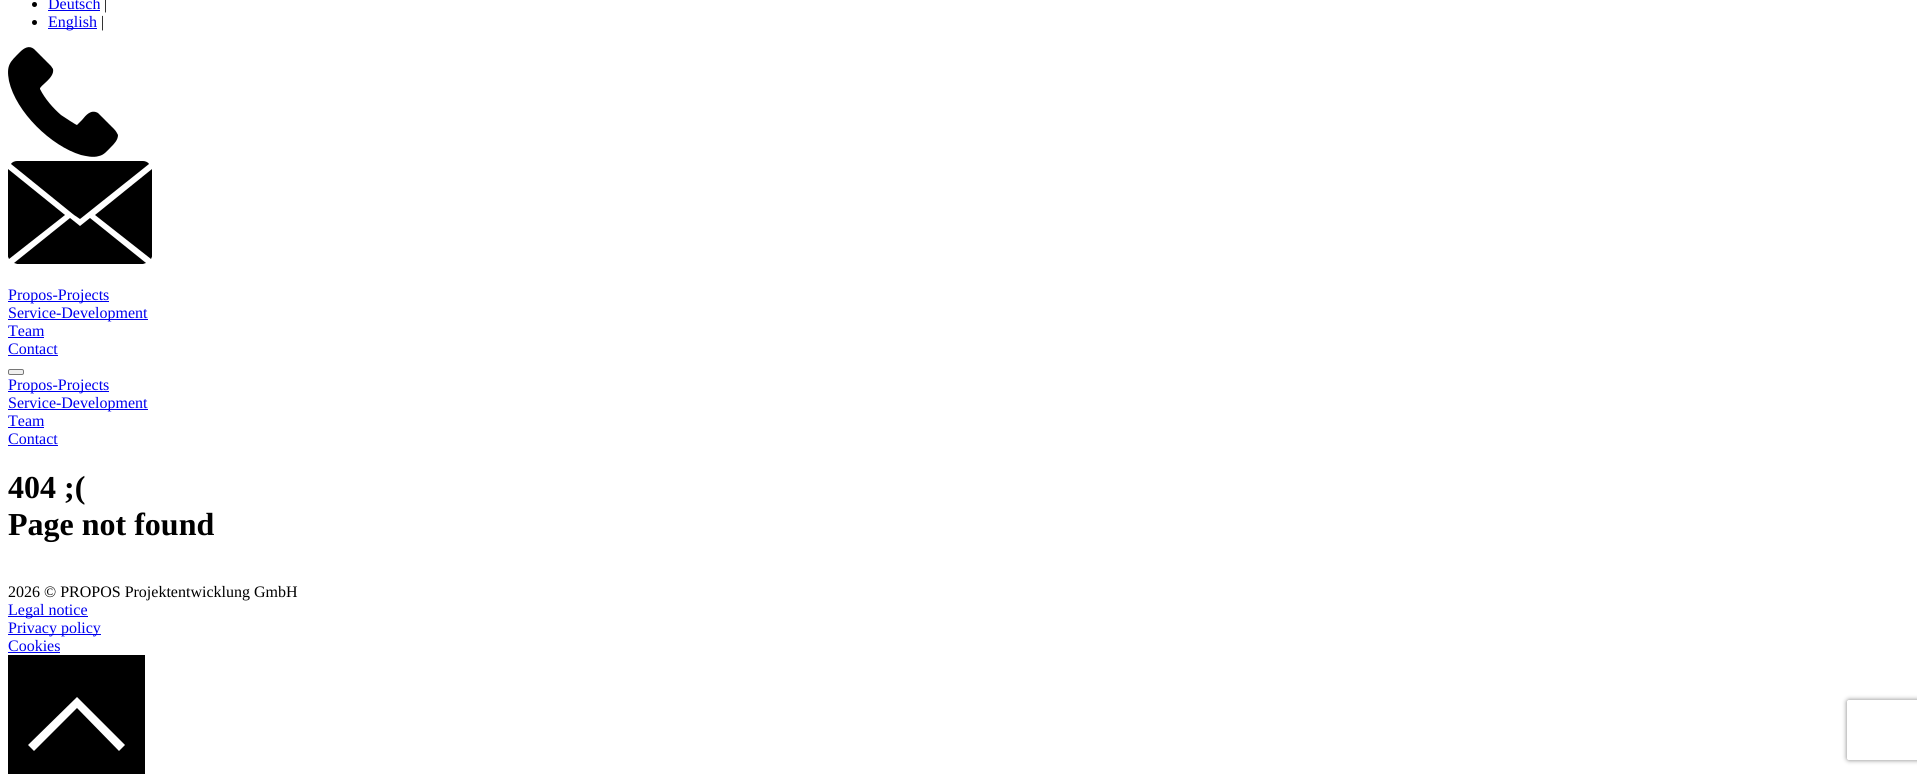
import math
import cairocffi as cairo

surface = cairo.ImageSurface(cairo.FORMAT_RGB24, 1917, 774)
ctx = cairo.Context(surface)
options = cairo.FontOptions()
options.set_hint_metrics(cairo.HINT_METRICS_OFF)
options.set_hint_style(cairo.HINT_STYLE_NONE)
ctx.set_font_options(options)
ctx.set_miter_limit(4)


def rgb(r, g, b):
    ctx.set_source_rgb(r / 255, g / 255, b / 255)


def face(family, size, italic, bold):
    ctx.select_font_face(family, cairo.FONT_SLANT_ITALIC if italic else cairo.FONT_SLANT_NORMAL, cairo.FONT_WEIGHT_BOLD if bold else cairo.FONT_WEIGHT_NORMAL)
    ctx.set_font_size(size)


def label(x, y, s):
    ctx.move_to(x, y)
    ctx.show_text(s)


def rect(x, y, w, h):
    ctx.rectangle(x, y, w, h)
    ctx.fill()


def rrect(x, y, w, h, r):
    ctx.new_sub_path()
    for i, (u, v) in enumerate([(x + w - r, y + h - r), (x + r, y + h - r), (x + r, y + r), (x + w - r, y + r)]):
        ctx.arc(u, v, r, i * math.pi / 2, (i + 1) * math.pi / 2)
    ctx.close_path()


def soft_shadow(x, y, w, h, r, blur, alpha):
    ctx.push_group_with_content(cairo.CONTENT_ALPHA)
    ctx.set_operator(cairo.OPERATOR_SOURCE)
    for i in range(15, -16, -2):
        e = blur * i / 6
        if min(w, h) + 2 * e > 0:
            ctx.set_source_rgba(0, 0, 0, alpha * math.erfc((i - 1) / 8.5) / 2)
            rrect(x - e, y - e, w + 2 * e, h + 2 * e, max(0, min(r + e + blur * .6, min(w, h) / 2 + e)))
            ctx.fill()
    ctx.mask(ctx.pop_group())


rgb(255, 255, 255)
ctx.paint()
rgb(0, 0, 0)
ctx.arc(34.5, 4.5, 2.5, 0, 2 * math.pi)
ctx.fill()
face('Liberation Serif', 16, 0, 0)
rgb(0, 0, 238)
label(48, 9, 'Deutsch')
rect(48, 10, 52, 1)
rgb(0, 0, 0)
label(104, 9, '|')
ctx.new_path()
ctx.arc(34.5, 22.5, 2.5, 0, 2 * math.pi)
ctx.fill()
rgb(0, 0, 238)
rect(48, 28, 49, 1)
label(48, 27, 'English')
rgb(0, 0, 0)
label(101, 27, '|')
ctx.new_path()
ctx.move_to(114, 129)
ctx.line_to(98, 113)
ctx.curve_to(91, 109, 86, 115, 82, 120)
ctx.line_to(77, 125)
ctx.curve_to(76, 125, 64, 117, 61, 115)
ctx.curve_to(53, 108, 45, 99, 40, 89)
ctx.curve_to(39, 86, 55, 78, 53, 69)
ctx.line_to(51, 66)
ctx.line_to(34, 49)
ctx.curve_to(29, 45, 24, 48, 20, 52)
ctx.curve_to(10, 62, 6, 65, 9, 81)
ctx.curve_to(16, 112, 51, 146, 81, 155)
ctx.curve_to(86, 156, 93, 158, 99, 156)
ctx.curve_to(104, 155, 107, 151, 111, 147)
ctx.curve_to(114, 144, 118, 140, 118, 135)
ctx.curve_to(117, 133, 116, 131, 114, 129)
ctx.fill()
ctx.new_path()
ctx.move_to(74, 215)
ctx.line_to(80, 219)
ctx.line_to(149, 164)
ctx.curve_to(148, 162, 145, 161, 143, 161)
ctx.line_to(17, 161)
ctx.curve_to(15, 161, 12, 162, 11, 164)
ctx.close_path()
ctx.fill()
ctx.save()
ctx.rectangle(8, 161, 144, 103)
ctx.clip()
ctx.new_path()
ctx.move_to(8, 169)
ctx.line_to(8, 240)
ctx.curve_to(8, 244, 6, 254, 9, 259)
ctx.line_to(65, 215)
ctx.close_path()
ctx.fill()
ctx.new_path()
ctx.move_to(152, 169)
ctx.line_to(95, 215)
ctx.line_to(151, 259)
ctx.curve_to(154, 254, 152, 244, 152, 240)
ctx.line_to(152, 169)
ctx.fill()
ctx.restore()
ctx.new_path()
ctx.move_to(80, 226)
ctx.line_to(70, 218)
ctx.line_to(14, 263)
ctx.line_to(17, 264)
ctx.line_to(143, 264)
ctx.line_to(146, 263)
ctx.line_to(90, 218)
ctx.close_path()
ctx.fill()
rgb(0, 0, 238)
rect(8, 301, 101, 1)
label(8, 300, 'Propos-Projects')
rect(8, 319, 140, 1)
label(8, 318, 'Service-Development')
label(8, 336, 'Team')
rect(8, 337, 36, 1)
label(8, 354, 'Contact')
rect(8, 355, 50, 1)
rgb(239, 239, 239)
rrect(8.5, 369.5, 15, 5, 1.5)
ctx.fill_preserve()
rgb(118, 118, 118)
ctx.set_line_width(1)
ctx.stroke()
rgb(0, 0, 238)
rect(8, 391, 101, 1)
label(8, 390, 'Propos-Projects')
rect(8, 409, 140, 1)
label(8, 408, 'Service-Development')
label(8, 426, 'Team')
rect(8, 427, 36, 1)
label(8, 444, 'Contact')
rect(8, 445, 50, 1)
face('Liberation Serif', 32, 0, 1)
rgb(0, 0, 0)
label(8, 498, '404 ;(')
label(8, 535, 'Page not found')
face('Liberation Serif', 16, 0, 0)
label(8, 597, '2026 © PROPOS Projektentwicklung GmbH')
rgb(0, 0, 238)
rect(8, 616, 80, 1)
label(8, 615, 'Legal notice')
rect(8, 634, 93, 1)
label(8, 633, 'Privacy policy')
label(8, 651, 'Cookies')
rect(8, 652, 52, 1)
rgb(0, 0, 0)
ctx.new_path()
ctx.move_to(145, 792)
ctx.line_to(145, 655)
ctx.line_to(8, 655)
ctx.line_to(8, 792)
ctx.close_path()
ctx.move_to(125, 745)
ctx.line_to(119, 751)
ctx.line_to(77, 708)
ctx.line_to(34, 751)
ctx.line_to(28, 745)
ctx.line_to(77, 697)
ctx.close_path()
ctx.fill()
ctx.save()
ctx.set_fill_rule(cairo.FILL_RULE_EVEN_ODD)
ctx.new_path()
ctx.move_to(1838, 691)
ctx.line_to(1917, 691)
ctx.line_to(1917, 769)
ctx.line_to(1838, 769)
ctx.close_path()
ctx.move_to(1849, 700)
ctx.line_to(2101, 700)
ctx.curve_to(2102, 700, 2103, 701, 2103, 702)
ctx.line_to(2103, 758)
ctx.curve_to(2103, 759, 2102, 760, 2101, 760)
ctx.line_to(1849, 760)
ctx.curve_to(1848, 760, 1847, 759, 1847, 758)
ctx.line_to(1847, 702)
ctx.curve_to(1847, 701, 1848, 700, 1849, 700)
ctx.close_path()
ctx.clip()
rgb(128, 128, 128)
soft_shadow(1847, 700, 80, 60, 2, 2.5, 1)
ctx.restore()
surface.write_to_png('render.png')
